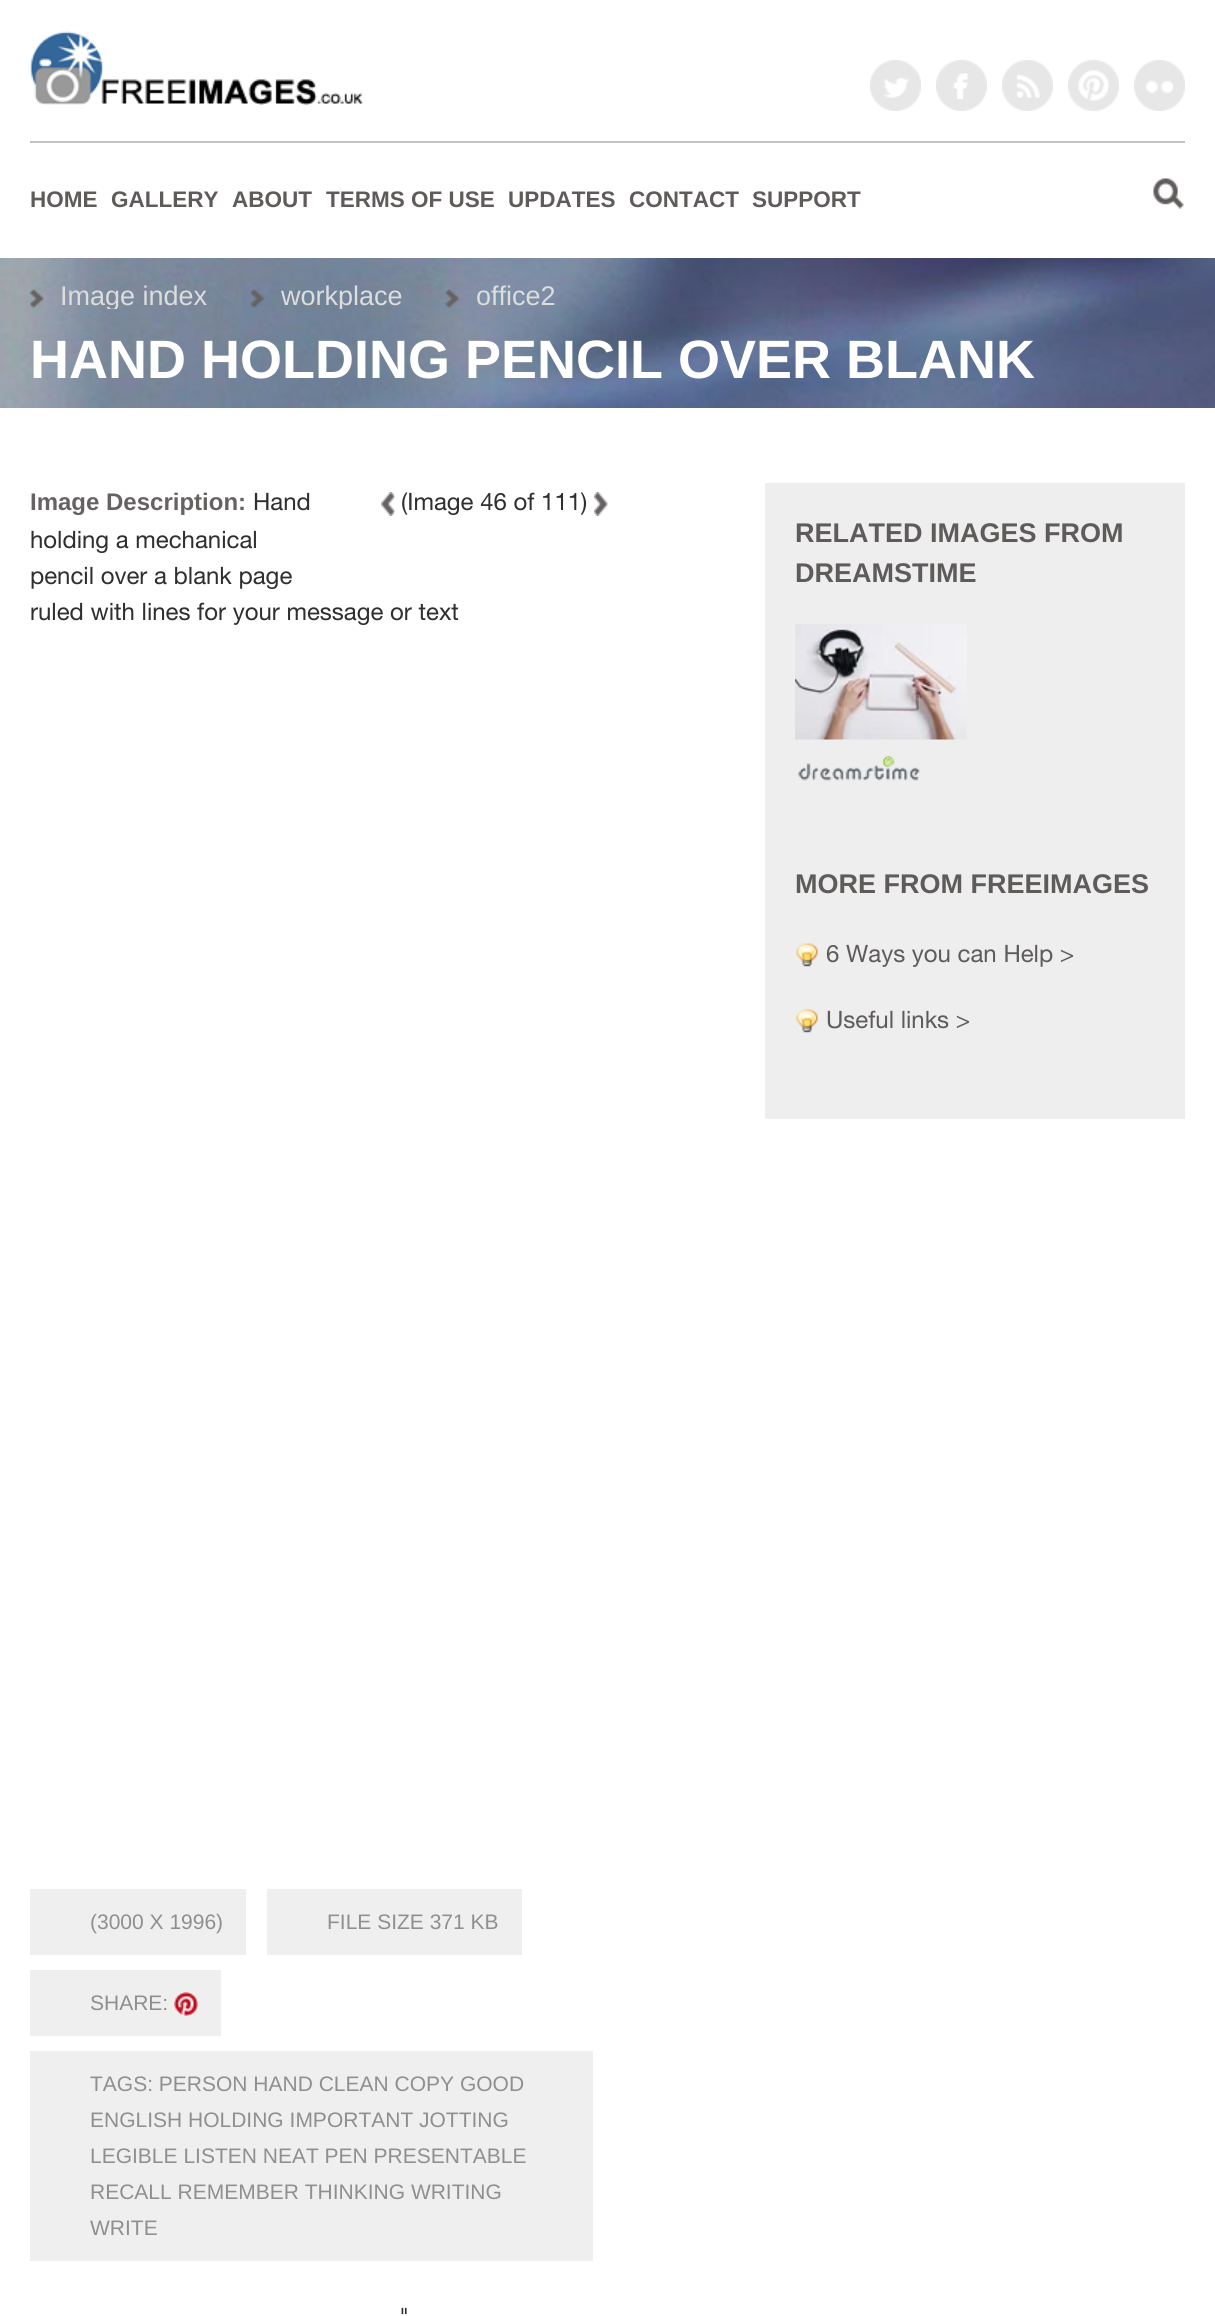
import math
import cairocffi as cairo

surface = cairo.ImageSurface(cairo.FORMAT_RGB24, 1215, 2316)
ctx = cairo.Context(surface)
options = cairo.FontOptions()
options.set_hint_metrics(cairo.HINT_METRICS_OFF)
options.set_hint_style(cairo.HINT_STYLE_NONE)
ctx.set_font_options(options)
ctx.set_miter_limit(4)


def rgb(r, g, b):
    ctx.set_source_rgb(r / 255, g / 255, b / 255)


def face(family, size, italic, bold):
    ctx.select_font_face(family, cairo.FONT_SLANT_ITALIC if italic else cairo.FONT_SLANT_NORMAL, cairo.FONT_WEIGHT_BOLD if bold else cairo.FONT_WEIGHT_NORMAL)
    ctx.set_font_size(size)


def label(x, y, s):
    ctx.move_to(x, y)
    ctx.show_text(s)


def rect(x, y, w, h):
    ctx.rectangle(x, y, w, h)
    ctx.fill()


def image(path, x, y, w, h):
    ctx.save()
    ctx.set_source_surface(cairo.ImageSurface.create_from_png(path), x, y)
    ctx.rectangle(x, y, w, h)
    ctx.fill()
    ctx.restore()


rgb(255, 255, 255)
ctx.paint()
rgb(194, 194, 194)
rect(30, 141, 1155, 2)
image('image0.png', 30, 31, 333, 74)
image('image1.png', 870, 60, 51, 51)
image('image2.png', 936, 60, 51, 51)
image('image3.png', 1002, 60, 51, 51)
image('image4.png', 1068, 60, 51, 51)
image('image5.png', 1134, 60, 51, 51)
face('Liberation Sans', 22.5, 0, 1)
rgb(95, 91, 91)
label(30, 207, 'HOME')
label(111, 207, 'GALLERY')
label(232, 207, 'ABOUT')
label(326, 207, 'TERMS OF USE')
label(508, 207, 'UPDATES')
label(629, 207, 'CONTACT')
label(752, 207, 'SUPPORT')
image('image6.png', 1153, 178, 31, 31)
image('image7.png', 0, 258, 1215, 150)
image('image8.png', 30, 289, 14, 19)
ctx.save()
ctx.rectangle(30, 282, 1155, 27)
ctx.clip()
face('Liberation Sans', 27, 0, 0)
rgb(221, 221, 221)
label(60, 305, 'Image index')
ctx.restore()
image('image9.png', 250, 289, 14, 19)
ctx.save()
ctx.rectangle(30, 282, 1155, 27)
ctx.clip()
face('Liberation Sans', 27, 0, 0)
rgb(221, 221, 221)
label(281, 305, 'workplace')
ctx.restore()
image('image10.png', 445, 289, 14, 19)
face('Liberation Sans', 27, 0, 0)
rgb(221, 221, 221)
label(476, 305, 'office2')
face('Liberation Sans', 54, 0, 1)
rgb(255, 255, 255)
label(30, 378, 'HAND HOLDING PENCIL OVER BLANK')
face('Liberation Sans', 24, 0, 1)
rgb(102, 98, 98)
label(30, 510, 'Image Description:')
face('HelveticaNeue', 24, 0, 0)
rgb(47, 47, 47)
label(253, 510, 'Hand')
label(30, 548, 'holding a mechanical')
label(30, 584, 'pencil over a blank page')
label(30, 620, 'ruled with lines for your message or text')
rgb(239, 239, 239)
rect(30, 1889, 216, 66)
face('Liberation Sans', 21, 0, 0)
rgb(143, 143, 143)
label(90, 1929, '(3000 X 1996)')
rgb(239, 239, 239)
rect(267, 1889, 255, 66)
rgb(143, 143, 143)
label(327, 1929, 'FILE SIZE 371 KB')
rgb(239, 239, 239)
rect(30, 1970, 191, 66)
rgb(143, 143, 143)
label(90, 2010, 'SHARE:')
image('image11.png', 174, 1992, 24, 24)
rgb(239, 239, 239)
rect(30, 2051, 563, 210)
rgb(143, 143, 143)
label(90, 2091, 'TAGS: PERSON HAND CLEAN COPY GOOD')
label(90, 2127, 'ENGLISH HOLDING IMPORTANT JOTTING')
label(90, 2163, 'LEGIBLE LISTEN NEAT PEN PRESENTABLE')
label(90, 2199, 'RECALL REMEMBER THINKING WRITING')
label(90, 2235, 'WRITE')
face('HelveticaNeue', 24, 0, 0)
rgb(47, 47, 47)
label(399, 2325, '"')
image('image12.png', 381, 492, 14, 24)
label(401, 510, '(Image 46 of 111)')
image('image13.png', 594, 492, 14, 24)
rgb(238, 238, 238)
rect(765, 483, 420, 636)
face('Liberation Sans', 27, 0, 1)
rgb(95, 91, 91)
label(795, 542, 'RELATED IMAGES FROM')
label(795, 582, 'DREAMSTIME')
image('image14.png', 795, 624, 172, 116)
image('image15.png', 797, 755, 123, 26)
label(795, 893, 'MORE FROM FREEIMAGES')
image('image16.png', 796, 943, 22, 24)
face('HelveticaNeue', 24, 0, 0)
label(826, 962, '6 Ways you can Help >')
image('image16.png', 796, 1009, 22, 24)
label(826, 1028, 'Useful links >')
surface.write_to_png('render.png')
